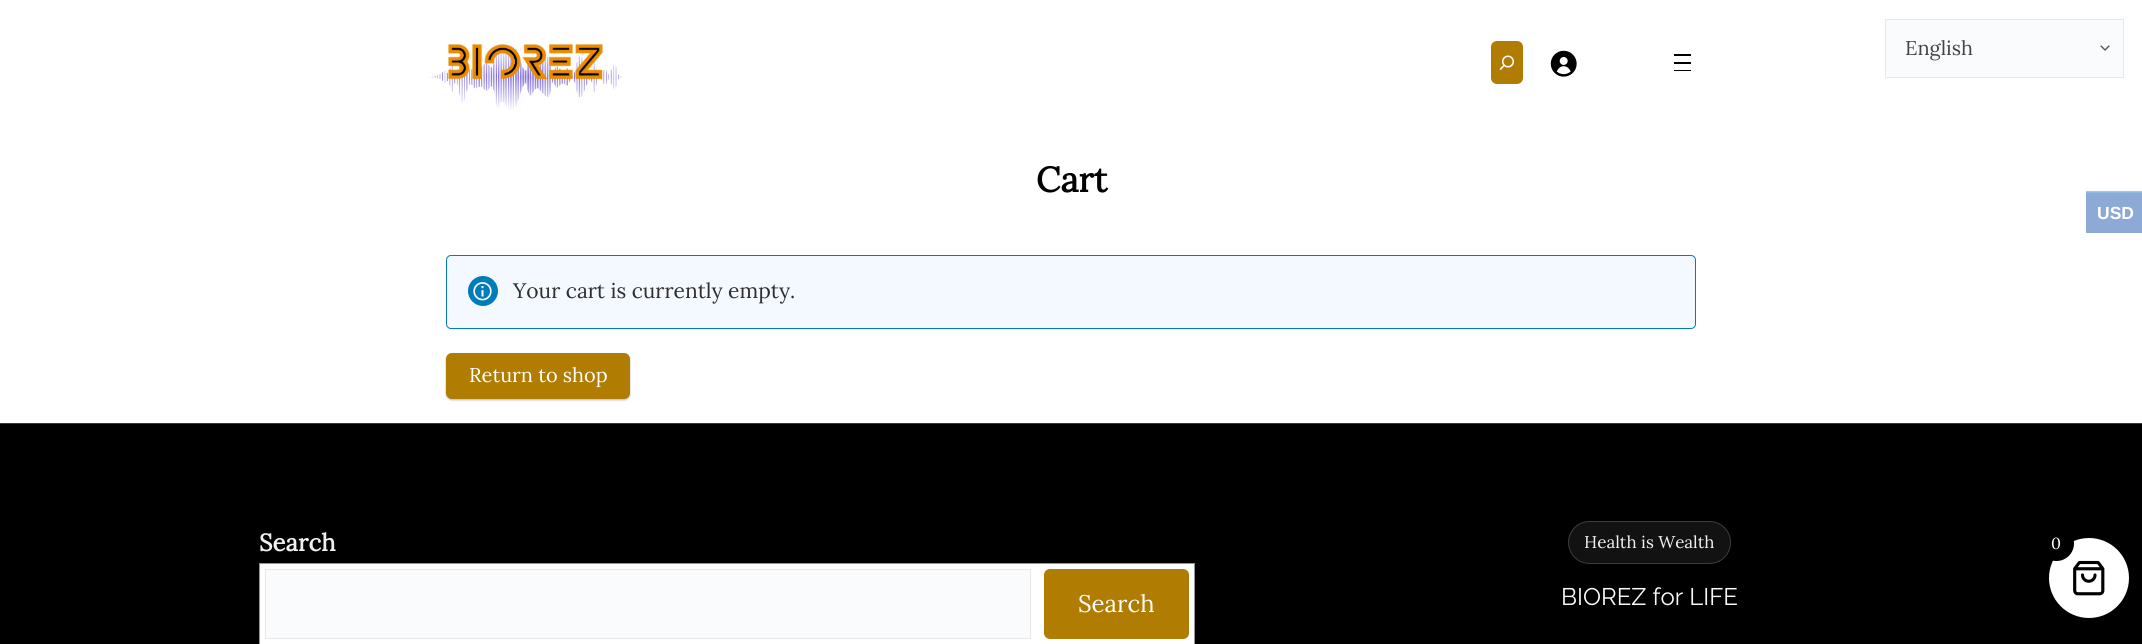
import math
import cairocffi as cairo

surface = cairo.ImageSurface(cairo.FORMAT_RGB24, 2142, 644)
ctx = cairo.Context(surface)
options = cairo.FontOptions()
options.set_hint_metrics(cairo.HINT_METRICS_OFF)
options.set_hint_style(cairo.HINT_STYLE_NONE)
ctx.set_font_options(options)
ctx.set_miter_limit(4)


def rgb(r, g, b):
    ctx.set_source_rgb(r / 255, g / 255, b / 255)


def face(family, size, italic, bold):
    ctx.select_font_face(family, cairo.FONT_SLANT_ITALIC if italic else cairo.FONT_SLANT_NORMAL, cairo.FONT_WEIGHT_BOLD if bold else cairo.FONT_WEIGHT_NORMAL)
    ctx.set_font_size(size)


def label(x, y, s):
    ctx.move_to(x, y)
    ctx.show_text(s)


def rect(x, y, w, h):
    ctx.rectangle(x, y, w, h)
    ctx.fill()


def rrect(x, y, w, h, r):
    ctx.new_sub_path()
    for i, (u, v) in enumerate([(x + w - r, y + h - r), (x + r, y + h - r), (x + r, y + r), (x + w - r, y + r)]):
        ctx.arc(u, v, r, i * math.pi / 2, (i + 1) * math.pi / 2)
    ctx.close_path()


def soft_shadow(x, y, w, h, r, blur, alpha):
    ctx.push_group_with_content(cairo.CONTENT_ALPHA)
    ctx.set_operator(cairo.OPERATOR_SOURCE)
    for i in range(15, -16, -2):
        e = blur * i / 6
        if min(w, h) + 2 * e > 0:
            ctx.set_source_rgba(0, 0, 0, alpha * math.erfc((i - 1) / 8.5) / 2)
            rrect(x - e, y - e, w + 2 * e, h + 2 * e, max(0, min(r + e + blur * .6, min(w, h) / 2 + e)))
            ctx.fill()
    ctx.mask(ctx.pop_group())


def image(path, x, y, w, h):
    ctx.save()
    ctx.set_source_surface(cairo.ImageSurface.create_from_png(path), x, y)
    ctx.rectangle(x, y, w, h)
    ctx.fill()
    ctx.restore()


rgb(255, 255, 255)
ctx.paint()
rgb(250, 251, 253)
rect(1886, 20, 237, 57)
image('image0.png', 2100, 45, 10, 6)
ctx.rectangle(1885.5, 19.5, 238, 58)
rgb(232, 232, 233)
ctx.set_line_width(1)
ctx.stroke()
face('Lora', 20, 0, 0)
rgb(68, 68, 68)
label(1905, 55, 'English')
image('image1.png', 430, 44, 192, 66)
rgb(176, 124, 1)
rrect(1491, 41, 32, 43, 6)
ctx.fill()
image('image2.png', 1499, 55, 16, 15)
image('image3.png', 1550, 50, 27, 27)
rgb(0, 0, 1)
rect(1674, 54, 17, 2)
rect(1674, 62, 17, 2)
rect(1674, 70, 17, 1)
face('Lora', 35, 0, 1)
label(1036, 192, 'Cart')
rgb(244, 248, 255)
rrect(446.5, 255.5, 1249, 73, 4.5)
ctx.fill_preserve()
rgb(0, 124, 186)
ctx.stroke()
ctx.arc(483, 291, 15, 0, 2 * math.pi)
ctx.fill()
image('image4.png', 473, 282, 19, 19)
face('Lora', 21, 0, 0)
rgb(47, 47, 47)
label(513, 298, 'Your cart is currently empty.')
rgb(0, 0, 0)
soft_shadow(446, 354, 184, 46, 6, 1, 0.08)
rgb(60, 64, 67)
soft_shadow(446, 354, 184, 46, 6, 1, 0.3)
rgb(176, 124, 1)
rrect(446, 353, 184, 46, 6)
ctx.fill()
face('Lora', 20, 0, 0)
rgb(255, 255, 253)
label(469, 382, 'Return to shop')
rgb(0, 0, 0)
rect(0, 424, 2142, 220)
rgb(56, 56, 56)
rect(0, 423, 2142, 1)
face('Lora', 24, 0, 1)
rgb(240, 240, 240)
label(259, 551, 'Search')
rgb(255, 255, 255)
ctx.rectangle(259.5, 563.5, 935, 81)
ctx.fill_preserve()
rgb(148, 148, 148)
ctx.stroke()
rgb(250, 251, 253)
ctx.rectangle(265.5, 569.5, 765, 69)
ctx.fill_preserve()
rgb(232, 232, 233)
ctx.stroke()
rgb(176, 124, 1)
rrect(1044, 569, 145, 70, 6)
ctx.fill()
face('Lora', 24, 0, 0)
rgb(255, 255, 253)
label(1078, 612, 'Search')
rgb(18, 18, 18)
rrect(1568, 521, 163, 43, 21.5)
ctx.fill()
rrect(1568.5, 521.5, 162, 42, 21)
ctx.set_source_rgba(0.812, 0.812, 0.812, 0.22)
ctx.stroke()
face('Lora', 17, 0, 0)
rgb(240, 240, 240)
label(1584, 548, 'Health is Wealth')
face('Raleway', 24, 0, 0)
rgb(249, 250, 251)
label(1561, 605, 'BIOREZ for LIFE')
rgb(143, 185, 223)
rect(2086, 192, 56, 1)
rgb(165, 199, 229)
rect(2086, 191, 56, 1)
rgb(141, 170, 214)
rect(2086, 193, 56, 40)
face('Liberation Sans', 17.5, 0, 1)
rgb(255, 255, 253)
label(2097, 219, 'USD')
rgb(255, 255, 255)
ctx.new_path()
ctx.arc(2089, 578, 40, 0, 2 * math.pi)
ctx.fill()
image('image5.png', 2073, 560, 32, 36)
rgb(0, 0, 0)
ctx.arc(2056.5, 543.5, 17.5, 0, 2 * math.pi)
ctx.fill()
face('Lora', 16, 0, 0)
rgb(255, 255, 253)
label(2051, 549, '0')
surface.write_to_png('render.png')
